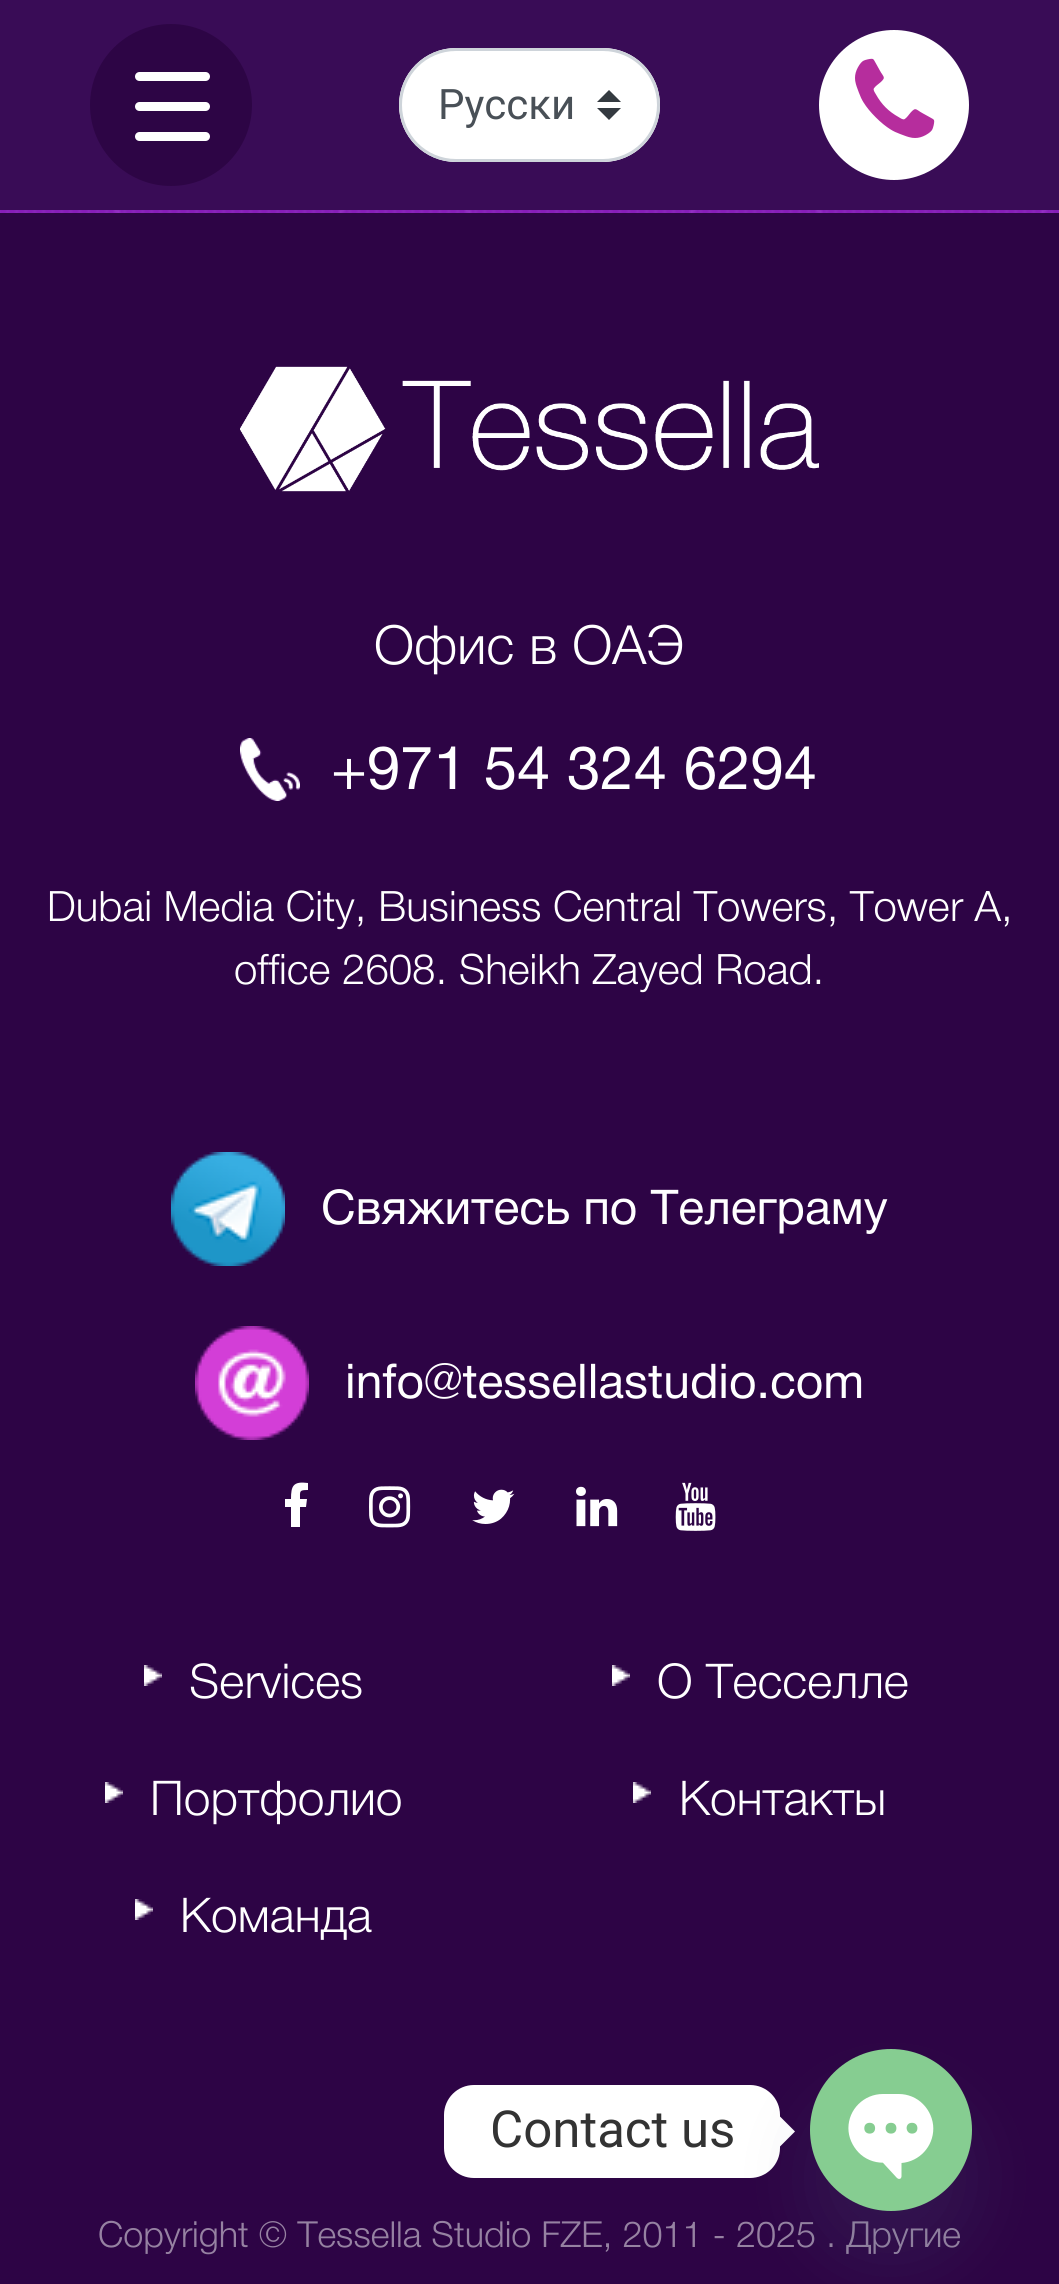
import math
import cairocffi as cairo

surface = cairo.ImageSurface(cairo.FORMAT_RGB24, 1059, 2284)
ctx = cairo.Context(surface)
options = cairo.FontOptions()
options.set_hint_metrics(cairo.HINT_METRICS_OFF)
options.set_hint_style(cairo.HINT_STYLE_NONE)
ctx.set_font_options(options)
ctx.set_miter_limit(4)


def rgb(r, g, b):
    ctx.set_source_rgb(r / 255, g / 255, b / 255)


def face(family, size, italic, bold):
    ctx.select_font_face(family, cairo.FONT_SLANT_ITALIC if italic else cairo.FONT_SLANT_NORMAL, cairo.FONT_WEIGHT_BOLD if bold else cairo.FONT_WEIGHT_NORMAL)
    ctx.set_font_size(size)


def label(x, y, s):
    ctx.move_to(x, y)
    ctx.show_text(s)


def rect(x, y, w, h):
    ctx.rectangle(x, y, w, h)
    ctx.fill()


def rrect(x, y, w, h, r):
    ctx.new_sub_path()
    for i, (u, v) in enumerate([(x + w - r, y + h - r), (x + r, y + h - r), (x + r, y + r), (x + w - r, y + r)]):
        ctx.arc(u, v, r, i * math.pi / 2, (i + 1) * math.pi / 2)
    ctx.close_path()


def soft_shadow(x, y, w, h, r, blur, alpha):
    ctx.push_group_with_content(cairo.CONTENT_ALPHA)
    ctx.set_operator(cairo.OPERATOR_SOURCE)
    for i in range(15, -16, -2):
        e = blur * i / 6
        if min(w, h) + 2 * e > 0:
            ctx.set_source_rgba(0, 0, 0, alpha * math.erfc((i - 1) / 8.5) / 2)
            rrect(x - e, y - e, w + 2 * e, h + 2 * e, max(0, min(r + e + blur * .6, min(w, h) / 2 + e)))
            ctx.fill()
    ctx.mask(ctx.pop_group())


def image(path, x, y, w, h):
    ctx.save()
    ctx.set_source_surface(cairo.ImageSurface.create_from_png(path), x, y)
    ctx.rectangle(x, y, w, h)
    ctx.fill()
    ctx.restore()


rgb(255, 255, 255)
ctx.paint()
rgb(57, 12, 86)
rect(0, 0, 1059, 210)
rgb(45, 5, 69)
ctx.arc(171, 105, 81, 0, 2 * math.pi)
ctx.fill()
rgb(255, 255, 255)
rrect(135, 102, 75, 9, 4.5)
ctx.fill()
rrect(135, 72, 75, 9, 4.5)
ctx.fill()
rrect(135, 132, 75, 9, 4.5)
ctx.fill()
rrect(399, 48, 261, 114, 57)
ctx.fill()
rgb(52, 58, 64)
ctx.new_path()
ctx.move_to(609, 90)
ctx.line_to(597, 102)
ctx.line_to(621, 102)
ctx.close_path()
ctx.move_to(609, 120)
ctx.line_to(597, 108)
ctx.line_to(621, 108)
ctx.close_path()
ctx.fill()
rrect(400.5, 49.5, 258, 111, 55.5)
rgb(206, 212, 218)
ctx.set_line_width(3)
ctx.stroke()
face('Roboto', 42, 0, 0)
rgb(73, 80, 87)
label(438, 119, 'Русски')
rgb(255, 255, 255)
ctx.new_path()
ctx.arc(894, 105, 75, 0, 2 * math.pi)
ctx.fill()
image('image0.png', 855, 58, 80, 80)
image('image1.png', 0, 210, 1059, 3)
rgb(45, 4, 69)
rect(0, 213, 1059, 2071)
image('image2.png', 240, 366, 579, 126)
face('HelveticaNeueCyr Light', 54, 0, 0)
rgb(255, 255, 255)
label(374, 664, 'Офис в ОАЭ')
image('image3.png', 240, 738, 60, 63)
face('HelveticaNeueCyr', 60, 0, 0)
label(331, 789, '+971 54 324 6294')
face('HelveticaNeueCyr Light', 42, 0, 0)
label(47, 921, 'Dubai Media City, Business Central Towers, Tower A,')
label(234, 984, 'office 2608. Sheikh Zayed Road.')
image('image4.png', 171, 1152, 114, 114)
face('HelveticaNeueCyr', 48, 0, 0)
label(321, 1224, 'Свяжитесь по Телеграму')
image('image5.png', 195, 1326, 114, 114)
label(345, 1398, 'info@tessellastudio.com')
ctx.new_path()
ctx.move_to(308, 1483)
ctx.line_to(308, 1490)
ctx.curve_to(299, 1490, 300, 1491, 300, 1499)
ctx.line_to(307, 1499)
ctx.line_to(306, 1507)
ctx.line_to(300, 1507)
ctx.line_to(300, 1527)
ctx.line_to(291, 1527)
ctx.line_to(291, 1507)
ctx.line_to(285, 1507)
ctx.line_to(285, 1499)
ctx.line_to(291, 1499)
ctx.curve_to(291, 1486, 293, 1481, 308, 1483)
ctx.close_path()
ctx.fill()
image('image6.png', 369, 1486, 42, 42)
image('image7.png', 472, 1489, 43, 35)
image('image8.png', 576, 1486, 42, 41)
image('image9.png', 675, 1482, 41, 49)
image('image10.png', 144, 1665, 18, 21)
face('HelveticaNeueCyr Light', 48, 0, 0)
label(189, 1698, 'Services')
image('image10.png', 612, 1665, 18, 21)
label(657, 1698, 'О Тесселле')
image('image10.png', 105, 1782, 18, 21)
label(150, 1815, 'Портфолио')
image('image10.png', 633, 1782, 18, 21)
label(679, 1815, 'Контакты')
image('image10.png', 135, 1899, 18, 21)
label(180, 1932, 'Команда')
face('HelveticaNeueCyr Light', 36, 0, 0)
rgb(150, 130, 162)
label(98, 2247, 'Copyright © Tessella Studio FZE, 2011 - 2025 . Другие')
rgb(255, 255, 255)
rrect(444, 2085, 336, 93, 30)
ctx.fill()
face('Roboto', 51, 0, 0)
rgb(51, 51, 51)
label(490, 2147, 'Contact us')
rgb(255, 255, 255)
ctx.new_path()
ctx.move_to(780, 2146.5)
ctx.line_to(780, 2116.5)
ctx.line_to(795, 2131.5)
ctx.close_path()
ctx.fill()
rgb(73, 104, 126)
soft_shadow(810, 2097, 162, 162, 81, 36, 0.16)
image('image11.png', 810, 2049, 162, 162)
surface.write_to_png('render.png')
